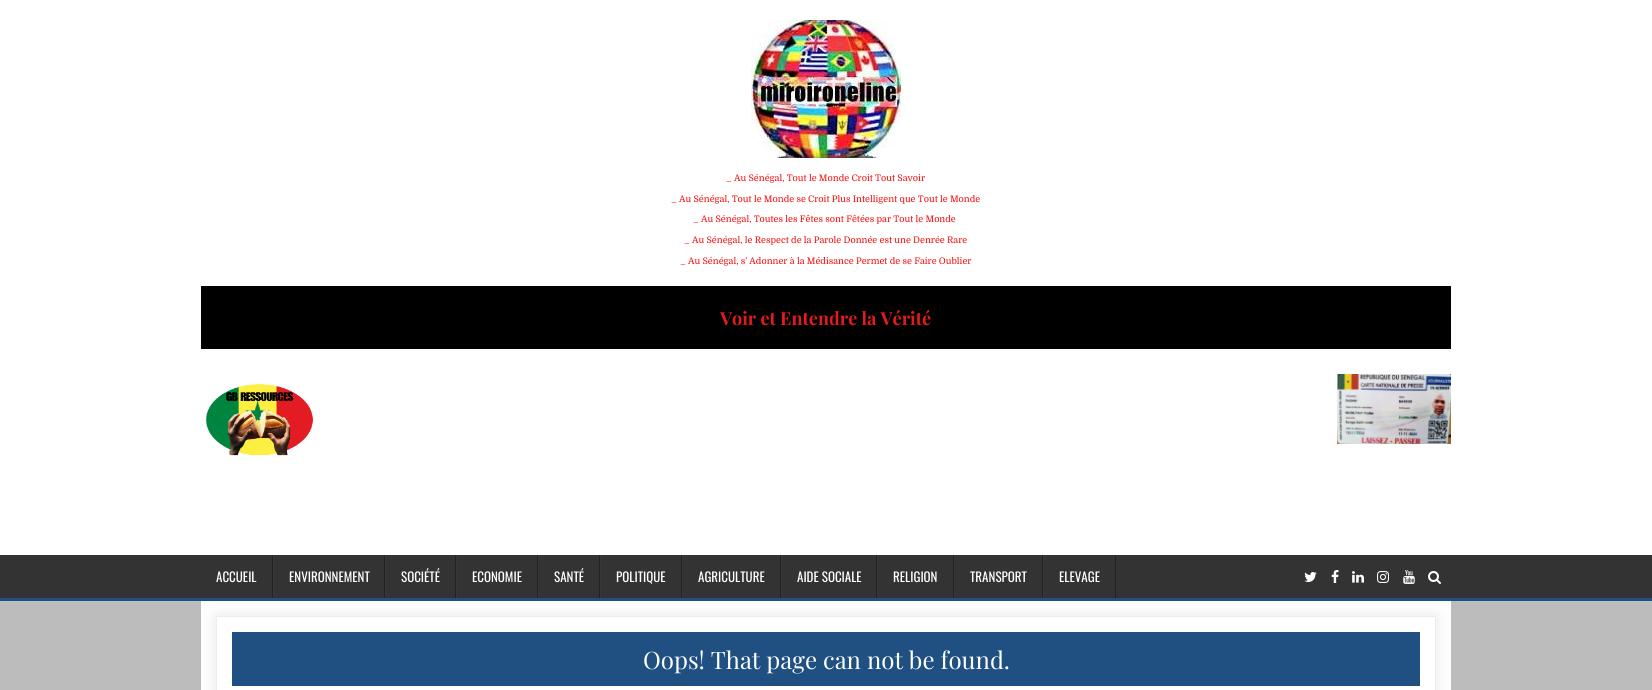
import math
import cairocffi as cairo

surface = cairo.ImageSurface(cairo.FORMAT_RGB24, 1652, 690)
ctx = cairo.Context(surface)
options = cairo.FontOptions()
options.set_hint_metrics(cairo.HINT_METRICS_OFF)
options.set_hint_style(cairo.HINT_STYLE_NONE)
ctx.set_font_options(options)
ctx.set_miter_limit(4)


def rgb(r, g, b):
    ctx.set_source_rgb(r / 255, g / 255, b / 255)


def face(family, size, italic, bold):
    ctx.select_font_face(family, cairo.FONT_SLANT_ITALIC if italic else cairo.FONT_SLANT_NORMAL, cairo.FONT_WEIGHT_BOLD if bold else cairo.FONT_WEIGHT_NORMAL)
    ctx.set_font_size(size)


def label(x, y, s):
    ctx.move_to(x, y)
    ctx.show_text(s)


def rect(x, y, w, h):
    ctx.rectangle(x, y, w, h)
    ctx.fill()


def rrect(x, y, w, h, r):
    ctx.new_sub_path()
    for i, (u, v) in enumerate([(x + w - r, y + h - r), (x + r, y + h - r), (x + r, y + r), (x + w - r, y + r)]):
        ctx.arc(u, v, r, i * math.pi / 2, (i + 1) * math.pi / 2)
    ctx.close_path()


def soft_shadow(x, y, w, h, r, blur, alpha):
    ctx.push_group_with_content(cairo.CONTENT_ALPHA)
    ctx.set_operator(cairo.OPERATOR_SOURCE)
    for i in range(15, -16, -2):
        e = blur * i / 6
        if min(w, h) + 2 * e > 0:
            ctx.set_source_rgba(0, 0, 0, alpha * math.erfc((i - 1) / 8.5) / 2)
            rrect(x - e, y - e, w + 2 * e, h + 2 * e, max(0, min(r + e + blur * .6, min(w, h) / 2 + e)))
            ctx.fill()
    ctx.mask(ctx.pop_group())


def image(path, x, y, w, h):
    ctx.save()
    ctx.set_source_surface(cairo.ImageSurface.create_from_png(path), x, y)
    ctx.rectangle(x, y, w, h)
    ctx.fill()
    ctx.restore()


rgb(188, 188, 188)
ctx.paint()
rgb(255, 255, 255)
rect(0, 0, 1652, 555)
image('image0.png', 751, 20, 150, 138)
face('Domine', 9, 0, 0)
rgb(246, 13, 13)
label(726, 181, '_ Au Sénégal, Tout le Monde Croit Tout Savoir')
label(671, 202, '_ Au Sénégal, Tout le Monde se Croit Plus Intelligent que Tout le Monde')
label(693, 222, '_ Au Sénégal, Toutes les Fêtes sont Fêtées par Tout le Monde')
label(684, 243, '_ Au Sénégal, le Respect de la Parole Donnée est une Denrée Rare')
label(680, 264, '_ Au Sénégal, s\' Adonner à la Médisance Permet de se Faire Oublier')
rgb(0, 0, 0)
rect(201, 286, 1250, 63)
face('Playfair Display', 18, 0, 1)
rgb(227, 27, 27)
label(720, 325, 'Voir et Entendre la Vérité')
image('image1.png', 206, 384, 107, 72)
image('image2.png', 1337, 374, 114, 70)
rgb(51, 51, 51)
rect(0, 555, 1652, 43)
rgb(32, 80, 129)
rect(0, 598, 1652, 3)
rgb(34, 34, 34)
rect(272, 555, 1, 43)
face('Oswald', 13, 0, 0)
rgb(255, 255, 255)
label(216, 582, 'ACCUEIL')
rgb(34, 34, 34)
rect(384, 555, 1, 43)
rgb(56, 56, 56)
rect(273, 555, 1, 43)
rgb(255, 255, 255)
label(289, 582, 'ENVIRONNEMENT')
rgb(34, 34, 34)
rect(455, 555, 1, 43)
rgb(56, 56, 56)
rect(385, 555, 1, 43)
rgb(255, 255, 255)
label(401, 582, 'SOCIÉTÉ')
rgb(34, 34, 34)
rect(537, 555, 1, 43)
rgb(56, 56, 56)
rect(456, 555, 1, 43)
rgb(255, 255, 255)
label(472, 582, 'ECONOMIE')
rgb(34, 34, 34)
rect(599, 555, 1, 43)
rgb(56, 56, 56)
rect(538, 555, 1, 43)
rgb(255, 255, 255)
label(554, 582, 'SANTÉ')
rgb(34, 34, 34)
rect(681, 555, 1, 43)
rgb(56, 56, 56)
rect(600, 555, 1, 43)
rgb(255, 255, 255)
label(616, 582, 'POLITIQUE')
rgb(34, 34, 34)
rect(780, 555, 1, 43)
rgb(56, 56, 56)
rect(682, 555, 1, 43)
rgb(255, 255, 255)
label(698, 582, 'AGRICULTURE')
rgb(34, 34, 34)
rect(876, 555, 1, 43)
rgb(56, 56, 56)
rect(781, 555, 1, 43)
rgb(255, 255, 255)
label(797, 582, 'AIDE SOCIALE')
rgb(34, 34, 34)
rect(953, 555, 1, 43)
rgb(56, 56, 56)
rect(877, 555, 1, 43)
rgb(255, 255, 255)
label(893, 582, 'RELIGION')
rgb(34, 34, 34)
rect(1042, 555, 1, 43)
rgb(56, 56, 56)
rect(954, 555, 1, 43)
rgb(255, 255, 255)
label(970, 582, 'TRANSPORT')
rgb(34, 34, 34)
rect(1115, 555, 1, 43)
rgb(56, 56, 56)
rect(1043, 555, 1, 43)
rgb(255, 255, 255)
label(1059, 582, 'ELEVAGE')
image('image3.png', 1304, 572, 13, 10)
image('image4.png', 1331, 570, 8, 13)
image('image5.png', 1352, 571, 12, 12)
image('image6.png', 1377, 571, 12, 12)
image('image7.png', 1403, 570, 12, 14)
image('image8.png', 1428, 571, 13, 13)
rect(201, 601, 1250, 89)
ctx.save()
ctx.set_fill_rule(cairo.FILL_RULE_EVEN_ODD)
ctx.new_path()
ctx.move_to(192, 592)
ctx.line_to(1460, 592)
ctx.line_to(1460, 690)
ctx.line_to(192, 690)
ctx.close_path()
ctx.move_to(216, 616)
ctx.line_to(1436, 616)
ctx.line_to(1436, 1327)
ctx.line_to(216, 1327)
ctx.close_path()
ctx.clip()
rgb(0, 0, 0)
soft_shadow(216, 616, 1220, 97, 0, 7.5, 0.1)
ctx.restore()
ctx.rectangle(216.5, 616.5, 1219, 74)
rgb(236, 236, 236)
ctx.set_line_width(1)
ctx.stroke()
rgb(32, 80, 129)
rect(232, 632, 1188, 54)
face('Playfair Display', 24, 0, 0)
rgb(255, 255, 255)
label(643, 669, 'Oops! That page can not be found.')
surface.write_to_png('render.png')
